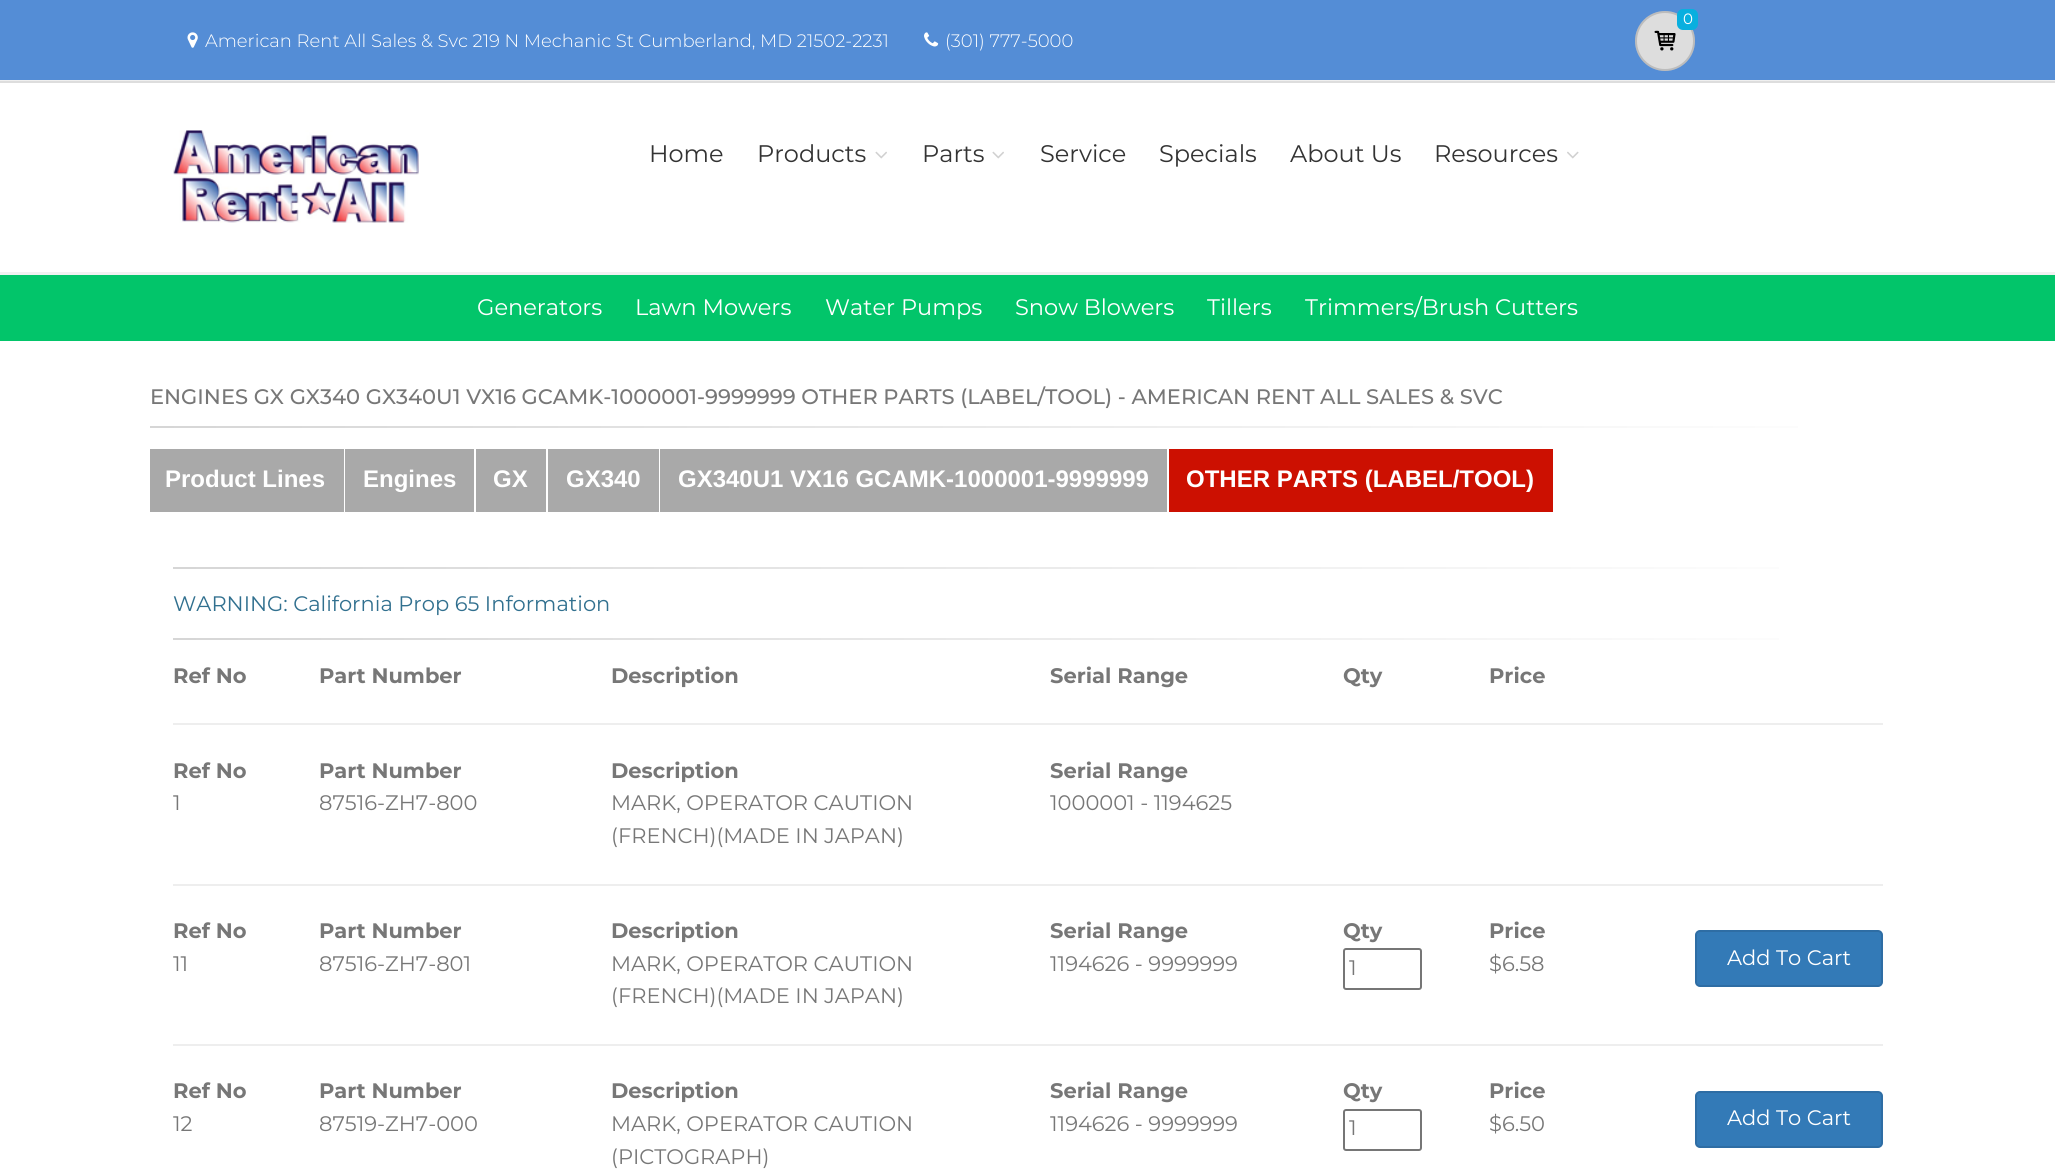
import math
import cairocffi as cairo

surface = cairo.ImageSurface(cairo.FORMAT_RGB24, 2055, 1169)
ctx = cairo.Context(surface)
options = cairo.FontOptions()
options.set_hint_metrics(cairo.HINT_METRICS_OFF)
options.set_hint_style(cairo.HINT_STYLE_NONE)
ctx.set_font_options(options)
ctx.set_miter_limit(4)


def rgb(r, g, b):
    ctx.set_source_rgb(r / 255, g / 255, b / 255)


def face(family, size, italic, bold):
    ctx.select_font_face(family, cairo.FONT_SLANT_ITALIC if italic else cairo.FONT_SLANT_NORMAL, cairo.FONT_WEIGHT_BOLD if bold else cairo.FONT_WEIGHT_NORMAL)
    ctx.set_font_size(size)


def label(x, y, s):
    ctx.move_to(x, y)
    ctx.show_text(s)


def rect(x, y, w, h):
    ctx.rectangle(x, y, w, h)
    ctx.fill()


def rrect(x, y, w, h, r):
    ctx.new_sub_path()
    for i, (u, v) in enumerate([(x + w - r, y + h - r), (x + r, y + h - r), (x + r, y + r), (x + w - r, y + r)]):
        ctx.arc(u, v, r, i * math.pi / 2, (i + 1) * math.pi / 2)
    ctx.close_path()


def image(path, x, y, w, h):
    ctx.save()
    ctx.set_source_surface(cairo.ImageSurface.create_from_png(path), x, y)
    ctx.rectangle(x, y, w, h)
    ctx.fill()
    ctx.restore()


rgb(255, 255, 255)
ctx.paint()
rgb(84, 141, 214)
rect(0, 0, 2055, 80)
rgb(239, 239, 239)
rect(0, 80, 2055, 1)
rgb(221, 221, 221)
ctx.arc(1665, 41, 30, 0, 2 * math.pi)
ctx.fill()
ctx.arc(1665, 41, 29, 0, 2 * math.pi)
ctx.set_source_rgba(0, 0, 0, 0.15)
ctx.stroke()
rgb(9, 175, 223)
rrect(1677, 9, 21, 21, 6)
ctx.fill()
face('Montserrat', 15, 0, 0)
rgb(255, 255, 255)
label(1683, 24, '0')
image('image0.png', 1654, 30, 22, 21)
image('image1.png', 187, 32, 11, 16)
face('Montserrat Light', 18, 0, 0)
label(205, 47, 'American Rent All Sales & Svc 219 N Mechanic St Cumberland, MD 21502-2231')
image('image2.png', 924, 32, 15, 15)
label(945, 47, '(301) 777-5000')
rgb(221, 221, 221)
rect(0, 81, 2055, 2)
rgb(241, 241, 241)
rect(0, 272, 2055, 3)
image('image3.png', 173, 130, 246, 93)
face('Montserrat', 24, 0, 0)
rgb(51, 51, 51)
label(649, 162, 'Home')
label(757, 162, 'Products')
image('image4.png', 875, 151, 12, 8)
label(922, 162, 'Parts')
image('image4.png', 992, 151, 12, 8)
label(1040, 162, 'Service')
label(1159, 162, 'Specials')
label(1290, 162, 'About Us')
label(1434, 162, 'Resources')
image('image5.png', 1567, 151, 12, 8)
rgb(2, 197, 106)
rect(0, 275, 2055, 66)
face('Montserrat', 22.5, 0, 0)
rgb(255, 255, 255)
label(477, 315, 'Generators')
label(635, 315, 'Lawn Mowers')
label(825, 315, 'Water Pumps')
label(1015, 315, 'Snow Blowers')
label(1207, 315, 'Tillers')
label(1305, 315, 'Trimmers/Brush Cutters')
face('Montserrat Medium', 21, 0, 0)
rgb(119, 119, 119)
label(150, 404, 'ENGINES GX GX340 GX340U1 VX16 GCAMK-1000001-9999999 OTHER PARTS (LABEL/TOOL) - AMERICAN RENT ALL SALES & SVC')
gradient = cairo.LinearGradient(150, 427, 1905, 427)
gradient.add_color_stop_rgba(0, 0.839, 0.839, 0.839, 1)
gradient.add_color_stop_rgba(1, 1, 1, 1, 1)
ctx.set_source(gradient)
rect(150, 426, 1648, 2)
rgb(169, 169, 169)
rect(150, 449, 194, 63)
face('Liberation Sans', 24, 0, 1)
rgb(255, 255, 255)
label(165, 487, 'Product Lines')
rgb(169, 169, 169)
rect(345, 449, 129, 63)
rgb(255, 255, 255)
label(363, 487, 'Engines')
rgb(169, 169, 169)
rect(476, 449, 70, 63)
rgb(255, 255, 255)
label(493, 487, 'GX')
rgb(169, 169, 169)
rect(548, 449, 111, 63)
rgb(255, 255, 255)
label(566, 487, 'GX340')
rgb(169, 169, 169)
rect(660, 449, 507, 63)
rgb(255, 255, 255)
label(678, 487, 'GX340U1 VX16 GCAMK-1000001-9999999')
rgb(204, 16, 1)
rect(1169, 449, 384, 63)
rgb(255, 255, 255)
label(1186, 487, 'OTHER PARTS (LABEL/TOOL)')
gradient = cairo.LinearGradient(173, 568, 1883, 568)
gradient.add_color_stop_rgba(0, 0.839, 0.839, 0.839, 1)
gradient.add_color_stop_rgba(1, 1, 1, 1, 1)
ctx.set_source(gradient)
rect(173, 567, 1606, 2)
face('Montserrat', 21, 0, 0)
rgb(49, 112, 143)
label(173, 611, 'WARNING: California Prop 65 Information')
gradient = cairo.LinearGradient(173, 638, 1883, 638)
gradient.add_color_stop_rgba(0, 0.839, 0.839, 0.839, 1)
gradient.add_color_stop_rgba(1, 1, 1, 1, 1)
ctx.set_source(gradient)
rect(173, 638, 1606, 2)
face('Montserrat', 21, 0, 1)
rgb(119, 119, 119)
label(173, 683, 'Ref No')
label(319, 683, 'Part Number')
label(611, 683, 'Description')
label(1050, 683, 'Serial Range')
label(1343, 683, 'Qty')
label(1489, 683, 'Price')
rgb(238, 238, 238)
rect(173, 723, 1710, 2)
rgb(119, 119, 119)
label(173, 778, 'Ref No')
face('Montserrat', 21, 0, 0)
label(173, 810, '1')
face('Montserrat', 21, 0, 1)
label(319, 778, 'Part Number')
face('Montserrat', 21, 0, 0)
label(319, 810, '87516-ZH7-800')
face('Montserrat', 21, 0, 1)
label(611, 778, 'Description')
face('Montserrat', 21, 0, 0)
label(611, 810, 'MARK, OPERATOR CAUTION')
label(611, 843, '(FRENCH)(MADE IN JAPAN)')
face('Montserrat', 21, 0, 1)
label(1050, 778, 'Serial Range')
face('Montserrat', 21, 0, 0)
label(1050, 810, '1000001 - 1194625')
rgb(238, 238, 238)
rect(173, 884, 1710, 2)
face('Montserrat', 21, 0, 1)
rgb(119, 119, 119)
label(173, 938, 'Ref No')
face('Montserrat', 21, 0, 0)
label(173, 971, '11')
face('Montserrat', 21, 0, 1)
label(319, 938, 'Part Number')
face('Montserrat', 21, 0, 0)
label(319, 971, '87516-ZH7-801')
face('Montserrat', 21, 0, 1)
label(611, 938, 'Description')
face('Montserrat', 21, 0, 0)
label(611, 971, 'MARK, OPERATOR CAUTION')
label(611, 1003, '(FRENCH)(MADE IN JAPAN)')
face('Montserrat', 21, 0, 1)
label(1050, 938, 'Serial Range')
face('Montserrat', 21, 0, 0)
label(1050, 971, '1194626 - 9999999')
face('Montserrat', 21, 0, 1)
label(1343, 938, 'Qty')
rrect(1344, 949, 77, 40, 2)
rgb(118, 118, 118)
ctx.stroke()
face('Montserrat', 21, 0, 0)
rgb(119, 119, 119)
label(1349, 975, '1')
face('Montserrat', 21, 0, 1)
label(1489, 938, 'Price')
face('Montserrat', 21, 0, 0)
label(1489, 971, '$6.58')
rgb(51, 122, 183)
rrect(1696, 931, 186, 55, 4)
ctx.fill_preserve()
rgb(46, 109, 164)
ctx.stroke()
rgb(255, 255, 255)
label(1727, 965, 'Add To Cart')
rgb(238, 238, 238)
rect(173, 1044, 1710, 2)
face('Montserrat', 21, 0, 1)
rgb(119, 119, 119)
label(173, 1098, 'Ref No')
face('Montserrat', 21, 0, 0)
label(173, 1131, '12')
face('Montserrat', 21, 0, 1)
label(319, 1098, 'Part Number')
face('Montserrat', 21, 0, 0)
label(319, 1131, '87519-ZH7-000')
face('Montserrat', 21, 0, 1)
label(611, 1098, 'Description')
face('Montserrat', 21, 0, 0)
label(611, 1131, 'MARK, OPERATOR CAUTION')
label(611, 1164, '(PICTOGRAPH)')
face('Montserrat', 21, 0, 1)
label(1050, 1098, 'Serial Range')
face('Montserrat', 21, 0, 0)
label(1050, 1131, '1194626 - 9999999')
face('Montserrat', 21, 0, 1)
label(1343, 1098, 'Qty')
rrect(1344, 1110, 77, 40, 2)
rgb(118, 118, 118)
ctx.stroke()
face('Montserrat', 21, 0, 0)
rgb(119, 119, 119)
label(1349, 1135, '1')
face('Montserrat', 21, 0, 1)
label(1489, 1098, 'Price')
face('Montserrat', 21, 0, 0)
label(1489, 1131, '$6.50')
rgb(51, 122, 183)
rrect(1696, 1092, 186, 55, 4)
ctx.fill_preserve()
rgb(46, 109, 164)
ctx.stroke()
rgb(255, 255, 255)
label(1727, 1125, 'Add To Cart')
surface.write_to_png('render.png')
